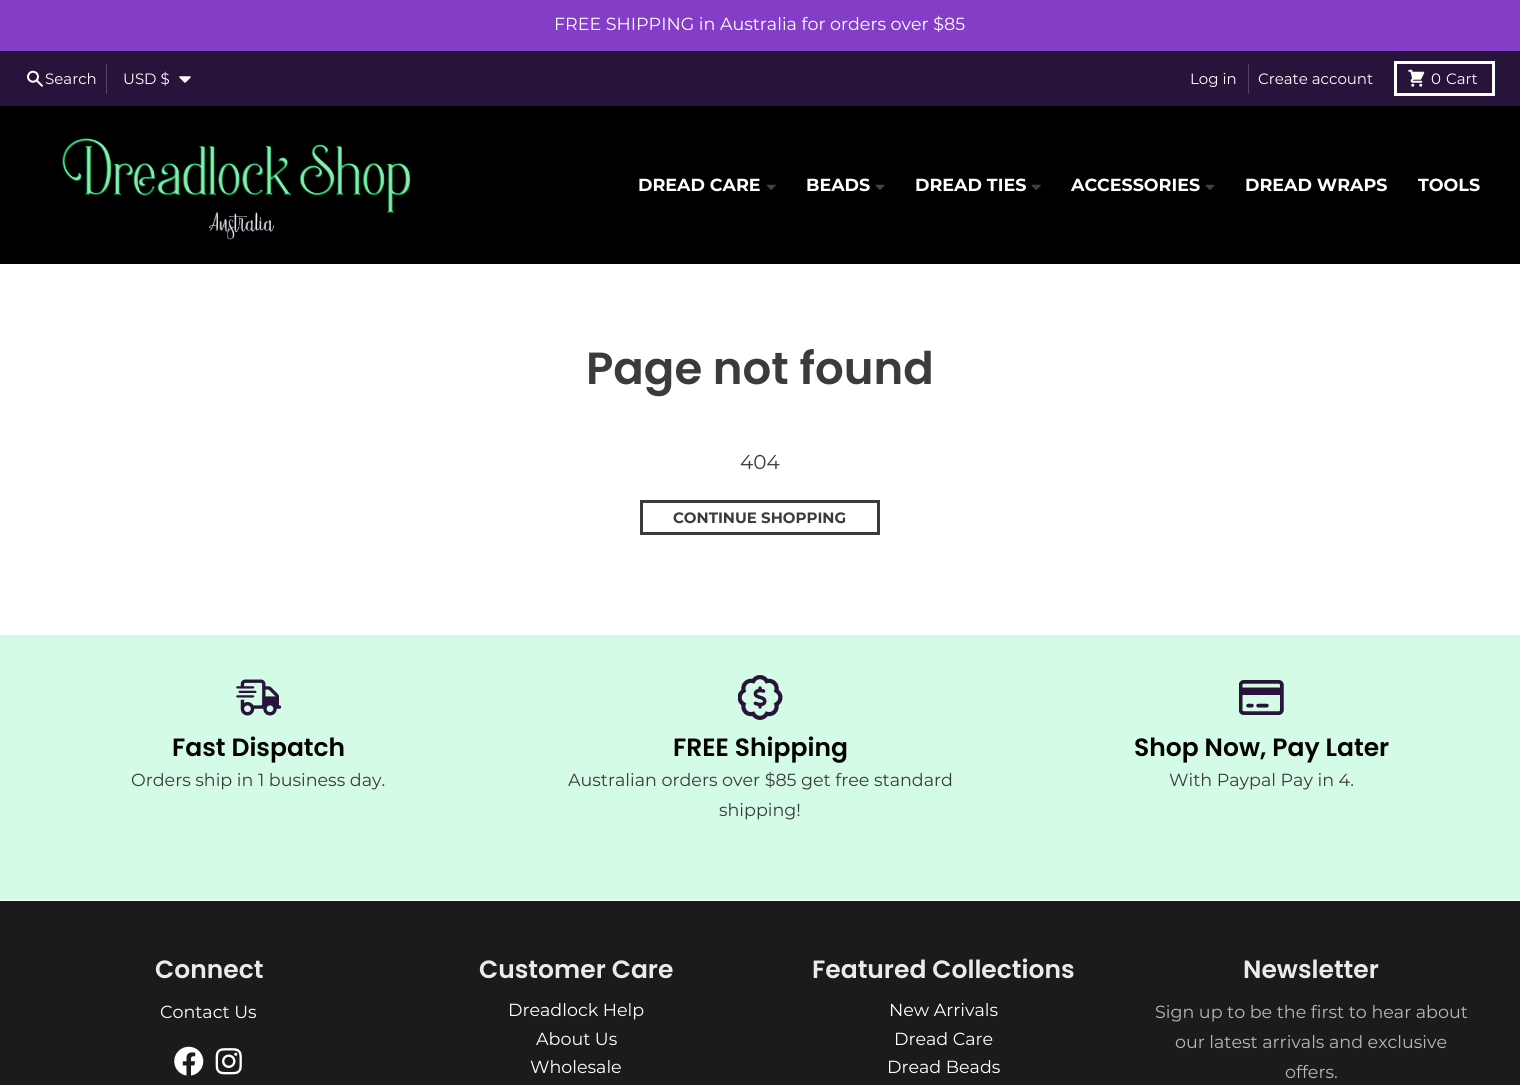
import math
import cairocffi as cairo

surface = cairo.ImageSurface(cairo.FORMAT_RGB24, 1520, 1085)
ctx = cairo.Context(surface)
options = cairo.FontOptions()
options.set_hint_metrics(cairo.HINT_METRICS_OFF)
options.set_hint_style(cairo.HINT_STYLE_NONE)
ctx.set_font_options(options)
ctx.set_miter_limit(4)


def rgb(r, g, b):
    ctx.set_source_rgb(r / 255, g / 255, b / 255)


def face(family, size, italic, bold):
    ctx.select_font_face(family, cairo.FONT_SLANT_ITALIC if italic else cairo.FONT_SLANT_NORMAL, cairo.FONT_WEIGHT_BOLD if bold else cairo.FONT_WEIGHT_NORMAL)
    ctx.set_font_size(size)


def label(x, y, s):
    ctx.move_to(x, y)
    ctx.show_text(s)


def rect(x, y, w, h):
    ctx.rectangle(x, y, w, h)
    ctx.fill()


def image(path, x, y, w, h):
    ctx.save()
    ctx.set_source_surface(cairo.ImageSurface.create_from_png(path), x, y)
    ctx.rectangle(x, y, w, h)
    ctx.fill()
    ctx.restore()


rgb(27, 27, 27)
ctx.paint()
rgb(132, 61, 198)
rect(0, 0, 1520, 51)
face('Montserrat', 17.5, 0, 0)
rgb(255, 255, 255)
label(554, 30, 'FREE SHIPPING in Australia for orders over $85')
rgb(40, 19, 59)
rect(0, 51, 1520, 55)
image('image0.png', 27, 70, 16, 17)
face('Montserrat', 15, 0, 0)
rgb(255, 255, 255)
label(45, 84, 'Search')
rgb(83, 66, 98)
rect(106, 64, 1, 30)
rgb(255, 255, 255)
label(123, 84, 'USD $')
image('image1.png', 179, 76, 12, 7)
label(1190, 84, 'Log in')
rgb(83, 66, 98)
rect(1248, 64, 1, 30)
rgb(255, 255, 255)
label(1258, 84, 'Create account')
ctx.rectangle(1395.5, 62.5, 98, 32)
ctx.set_line_width(3)
ctx.stroke()
image('image2.png', 1408, 69, 17, 18)
label(1431, 84, '0')
label(1446, 84, 'Cart')
rgb(0, 0, 0)
rect(0, 106, 1520, 158)
image('image3.png', 62, 138, 349, 102)
face('Montserrat', 17.5, 0, 1)
rgb(255, 255, 255)
label(638, 191, 'DREAD CARE')
image('image4.png', 766, 184, 10, 6)
label(806, 191, 'BEADS')
image('image5.png', 875, 184, 10, 6)
label(915, 191, 'DREAD TIES')
image('image4.png', 1031, 184, 10, 6)
label(1071, 191, 'ACCESSORIES')
image('image5.png', 1205, 184, 10, 6)
label(1245, 191, 'DREAD WRAPS')
label(1418, 191, 'TOOLS')
rect(0, 264, 1520, 371)
face('Poppins SemiBold', 45, 0, 0)
rgb(59, 58, 61)
label(586, 384, 'Page not found')
face('Montserrat', 20, 0, 0)
label(740, 469, '404')
ctx.rectangle(641.5, 501.5, 237, 32)
ctx.stroke()
face('Montserrat', 15, 0, 1)
label(673, 523, 'CONTINUE SHOPPING')
rgb(212, 251, 229)
rect(0, 635, 1520, 265)
rgb(255, 255, 255)
rect(0, 900, 1520, 1)
image('image6.png', 236, 679, 45, 37)
face('Poppins SemiBold', 25, 0, 0)
rgb(0, 0, 0)
label(172, 756, 'Fast Dispatch')
face('Montserrat', 17.5, 0, 0)
rgb(59, 58, 61)
label(131, 786, 'Orders ship in 1 business day.')
image('image7.png', 738, 675, 45, 45)
face('Poppins SemiBold', 25, 0, 0)
rgb(0, 0, 0)
label(673, 756, 'FREE Shipping')
face('Montserrat', 17.5, 0, 0)
rgb(59, 58, 61)
label(568, 786, 'Australian orders over $85 get free standard')
label(719, 816, 'shipping!')
image('image8.png', 1239, 680, 45, 35)
face('Poppins SemiBold', 25, 0, 0)
rgb(0, 0, 0)
label(1134, 756, 'Shop Now, Pay Later')
face('Montserrat', 17.5, 0, 0)
rgb(59, 58, 61)
label(1169, 786, 'With Paypal Pay in 4.')
face('Poppins SemiBold', 25, 0, 0)
rgb(235, 235, 237)
label(155, 978, 'Connect')
face('Montserrat', 17.5, 0, 0)
rgb(255, 255, 255)
label(160, 1018, 'Contact Us')
image('image9.png', 174, 1046, 30, 30)
image('image10.png', 215, 1048, 27, 27)
face('Poppins SemiBold', 25, 0, 0)
rgb(235, 235, 237)
label(479, 978, 'Customer Care')
face('Montserrat', 17.5, 0, 0)
rgb(255, 255, 255)
label(508, 1016, 'Dreadlock Help')
label(536, 1045, 'About Us')
label(530, 1073, 'Wholesale')
face('Poppins SemiBold', 25, 0, 0)
rgb(235, 235, 237)
label(812, 978, 'Featured Collections')
face('Montserrat', 17.5, 0, 0)
rgb(255, 255, 255)
label(889, 1016, 'New Arrivals')
label(894, 1045, 'Dread Care')
label(887, 1073, 'Dread Beads')
face('Poppins SemiBold', 25, 0, 0)
rgb(235, 235, 237)
label(1243, 978, 'Newsletter')
face('Montserrat', 17.5, 0, 0)
rgb(183, 183, 185)
label(1155, 1018, 'Sign up to be the first to hear about')
label(1175, 1048, 'our latest arrivals and exclusive')
label(1285, 1078, 'offers.')
surface.write_to_png('render.png')
